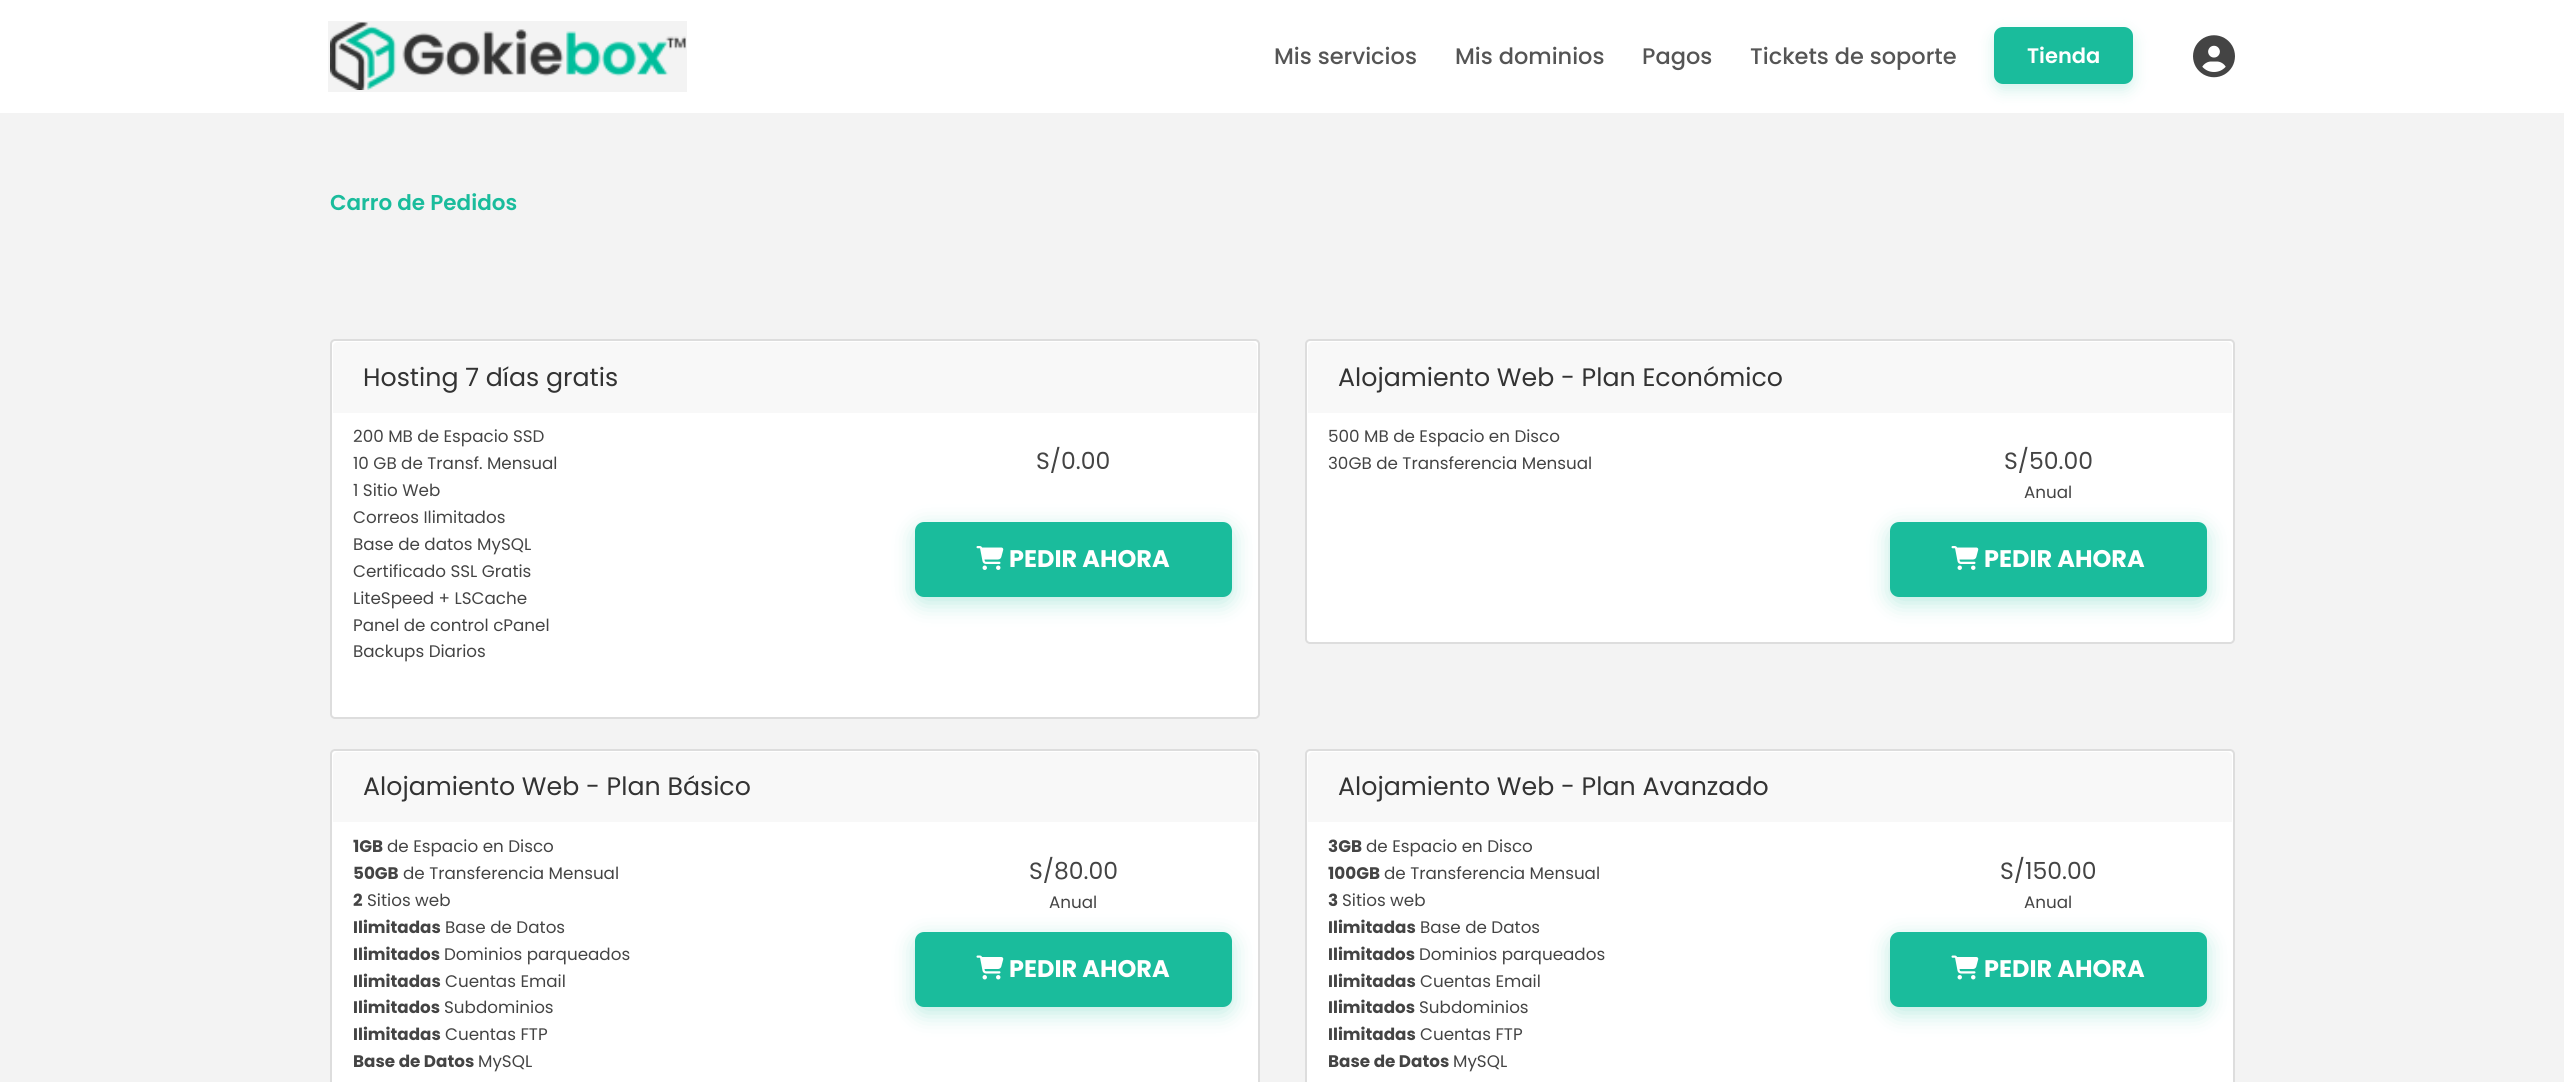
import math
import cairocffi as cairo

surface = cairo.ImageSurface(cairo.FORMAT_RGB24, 2564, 1082)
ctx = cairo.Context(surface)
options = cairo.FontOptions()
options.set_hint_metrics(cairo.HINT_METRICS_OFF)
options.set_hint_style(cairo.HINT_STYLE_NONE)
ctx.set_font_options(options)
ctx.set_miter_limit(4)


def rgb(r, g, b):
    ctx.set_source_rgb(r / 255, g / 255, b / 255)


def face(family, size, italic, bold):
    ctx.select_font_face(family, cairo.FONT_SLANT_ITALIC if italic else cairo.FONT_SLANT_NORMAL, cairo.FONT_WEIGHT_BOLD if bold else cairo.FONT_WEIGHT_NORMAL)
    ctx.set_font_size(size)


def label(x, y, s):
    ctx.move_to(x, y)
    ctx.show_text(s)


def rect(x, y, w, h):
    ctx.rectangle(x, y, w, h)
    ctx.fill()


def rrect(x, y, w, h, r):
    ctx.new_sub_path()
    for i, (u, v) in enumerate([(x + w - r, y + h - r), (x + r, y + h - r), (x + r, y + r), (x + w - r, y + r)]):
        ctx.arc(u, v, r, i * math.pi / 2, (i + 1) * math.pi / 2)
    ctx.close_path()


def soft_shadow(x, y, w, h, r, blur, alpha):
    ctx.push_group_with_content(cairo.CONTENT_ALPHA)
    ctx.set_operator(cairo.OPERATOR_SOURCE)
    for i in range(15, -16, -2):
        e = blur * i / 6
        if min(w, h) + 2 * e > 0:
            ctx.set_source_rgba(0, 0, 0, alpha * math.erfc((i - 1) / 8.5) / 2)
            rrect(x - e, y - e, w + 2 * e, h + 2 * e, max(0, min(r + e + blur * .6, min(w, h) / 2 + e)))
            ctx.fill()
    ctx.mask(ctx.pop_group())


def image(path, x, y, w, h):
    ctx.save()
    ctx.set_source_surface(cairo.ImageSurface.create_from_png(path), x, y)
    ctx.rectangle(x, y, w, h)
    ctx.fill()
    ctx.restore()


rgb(243, 243, 243)
ctx.paint()
rgb(255, 255, 255)
rect(0, 0, 2564, 113)
image('image0.png', 328, 21, 359, 71)
face('Poppins Medium', 22.5, 0, 0)
rgb(85, 85, 85)
label(1274, 64, 'Mis servicios')
label(1455, 64, 'Mis dominios')
label(1642, 64, 'Pagos')
label(1750, 64, 'Tickets de soporte')
rgb(26, 188, 156)
soft_shadow(1994, 33, 139, 57, 9, 7.5, 0.2)
rgb(26, 188, 156)
rrect(1994, 27, 139, 57, 9)
ctx.fill()
face('Poppins SemiBold', 21, 0, 0)
rgb(255, 255, 255)
label(2027, 63, 'Tienda')
image('image1.png', 2193, 35, 42, 43)
face('Poppins SemiBold', 21.5, 0, 0)
rgb(26, 188, 156)
label(330, 210, 'Carro de Pedidos')
rgb(255, 255, 255)
rrect(331, 340, 928, 378, 4)
ctx.fill_preserve()
rgb(221, 221, 221)
ctx.stroke()
rgb(248, 248, 248)
ctx.new_path()
ctx.move_to(338, 342)
ctx.line_to(1252, 342)
ctx.curve_to(1255, 342, 1257, 344, 1257, 347)
ctx.line_to(1257, 413)
ctx.line_to(333, 413)
ctx.line_to(333, 347)
ctx.curve_to(333, 344, 335, 342, 338, 342)
ctx.close_path()
ctx.fill()
face('Poppins', 25.25, 0, 0)
rgb(51, 51, 51)
label(363, 386, 'Hosting 7 días gratis')
face('Poppins', 16.75, 0, 0)
rgb(68, 68, 68)
label(353, 442, '200 MB de Espacio SSD')
label(353, 469, '10 GB de Transf. Mensual')
label(353, 496, '1 Sitio Web')
label(353, 523, 'Correos Ilimitados')
label(353, 550, 'Base de datos MySQL')
label(353, 577, 'Certificado SSL Gratis')
label(353, 604, 'LiteSpeed + LSCache')
label(353, 631, 'Panel de control cPanel')
label(353, 657, 'Backups Diarios')
face('Poppins', 23.5, 0, 0)
label(1036, 469, 'S/0.00')
rgb(26, 188, 156)
soft_shadow(915, 528, 317, 75, 9, 11, 0.3)
rgb(26, 188, 156)
rrect(916, 523, 315, 73, 8)
ctx.fill_preserve()
ctx.stroke()
image('image2.png', 976, 546, 28, 24)
face('Poppins', 24, 0, 1)
rgb(255, 255, 255)
label(1009, 567, 'PEDIR AHORA')
rrect(1306, 340, 928, 303, 4)
ctx.fill_preserve()
rgb(221, 221, 221)
ctx.stroke()
rgb(248, 248, 248)
ctx.new_path()
ctx.move_to(1313, 342)
ctx.line_to(2227, 342)
ctx.curve_to(2230, 342, 2232, 344, 2232, 347)
ctx.line_to(2232, 413)
ctx.line_to(1308, 413)
ctx.line_to(1308, 347)
ctx.curve_to(1308, 344, 1310, 342, 1313, 342)
ctx.close_path()
ctx.fill()
face('Poppins', 25.25, 0, 0)
rgb(51, 51, 51)
label(1338, 386, 'Alojamiento Web - Plan Económico')
face('Poppins', 16.75, 0, 0)
rgb(68, 68, 68)
label(1328, 442, '500 MB de Espacio en Disco')
label(1328, 469, '30GB de Transferencia Mensual')
face('Poppins', 23.5, 0, 0)
label(2004, 469, 'S/50.00')
face('Poppins', 16.75, 0, 0)
label(2024, 498, 'Anual')
rgb(26, 188, 156)
soft_shadow(1890, 528, 317, 75, 9, 11, 0.3)
rgb(26, 188, 156)
rrect(1891, 523, 315, 73, 8)
ctx.fill_preserve()
ctx.stroke()
image('image2.png', 1951, 546, 28, 24)
face('Poppins', 24, 0, 1)
rgb(255, 255, 255)
label(1984, 567, 'PEDIR AHORA')
rrect(331, 750, 928, 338, 4)
ctx.fill_preserve()
rgb(221, 221, 221)
ctx.stroke()
rgb(248, 248, 248)
ctx.new_path()
ctx.move_to(338, 752)
ctx.line_to(1252, 752)
ctx.curve_to(1255, 752, 1257, 754, 1257, 757)
ctx.line_to(1257, 822)
ctx.line_to(333, 822)
ctx.line_to(333, 757)
ctx.curve_to(333, 754, 335, 752, 338, 752)
ctx.close_path()
ctx.fill()
face('Poppins', 25.25, 0, 0)
rgb(51, 51, 51)
label(363, 795, 'Alojamiento Web - Plan Básico')
face('Poppins', 16.75, 0, 1)
rgb(68, 68, 68)
label(353, 852, '1GB')
face('Poppins', 16.75, 0, 0)
label(387, 852, 'de Espacio en Disco')
face('Poppins', 16.75, 0, 1)
label(353, 879, '50GB')
face('Poppins', 16.75, 0, 0)
label(403, 879, 'de Transferencia Mensual')
face('Poppins', 16.75, 0, 1)
label(353, 906, '2')
face('Poppins', 16.75, 0, 0)
label(367, 906, 'Sitios web')
face('Poppins', 16.75, 0, 1)
label(353, 933, 'Ilimitadas')
face('Poppins', 16.75, 0, 0)
label(445, 933, 'Base de Datos')
face('Poppins', 16.75, 0, 1)
label(353, 960, 'Ilimitados')
face('Poppins', 16.75, 0, 0)
label(444, 960, 'Dominios parqueados')
face('Poppins', 16.75, 0, 1)
label(353, 987, 'Ilimitadas')
face('Poppins', 16.75, 0, 0)
label(445, 987, 'Cuentas Email')
face('Poppins', 16.75, 0, 1)
label(353, 1013, 'Ilimitados')
face('Poppins', 16.75, 0, 0)
label(444, 1013, 'Subdominios')
face('Poppins', 16.75, 0, 1)
label(353, 1040, 'Ilimitadas')
face('Poppins', 16.75, 0, 0)
label(445, 1040, 'Cuentas FTP')
face('Poppins', 16.75, 0, 1)
label(353, 1067, 'Base de Datos')
face('Poppins', 16.75, 0, 0)
label(478, 1067, 'MySQL')
face('Poppins', 23.5, 0, 0)
label(1029, 879, 'S/80.00')
face('Poppins', 16.75, 0, 0)
label(1049, 908, 'Anual')
rgb(26, 188, 156)
soft_shadow(915, 938, 317, 75, 9, 11, 0.3)
rgb(26, 188, 156)
rrect(916, 933, 315, 73, 8)
ctx.fill_preserve()
ctx.stroke()
image('image3.png', 976, 955, 28, 25)
face('Poppins', 24, 0, 1)
rgb(255, 255, 255)
label(1009, 977, 'PEDIR AHORA')
rrect(1306, 750, 928, 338, 4)
ctx.fill_preserve()
rgb(221, 221, 221)
ctx.stroke()
rgb(248, 248, 248)
ctx.new_path()
ctx.move_to(1313, 752)
ctx.line_to(2227, 752)
ctx.curve_to(2230, 752, 2232, 754, 2232, 757)
ctx.line_to(2232, 822)
ctx.line_to(1308, 822)
ctx.line_to(1308, 757)
ctx.curve_to(1308, 754, 1310, 752, 1313, 752)
ctx.close_path()
ctx.fill()
face('Poppins', 25.25, 0, 0)
rgb(51, 51, 51)
label(1338, 795, 'Alojamiento Web - Plan Avanzado')
face('Poppins', 16.75, 0, 1)
rgb(68, 68, 68)
label(1328, 852, '3GB')
face('Poppins', 16.75, 0, 0)
label(1366, 852, 'de Espacio en Disco')
face('Poppins', 16.75, 0, 1)
label(1328, 879, '100GB')
face('Poppins', 16.75, 0, 0)
label(1384, 879, 'de Transferencia Mensual')
face('Poppins', 16.75, 0, 1)
label(1328, 906, '3')
face('Poppins', 16.75, 0, 0)
label(1342, 906, 'Sitios web')
face('Poppins', 16.75, 0, 1)
label(1328, 933, 'Ilimitadas')
face('Poppins', 16.75, 0, 0)
label(1420, 933, 'Base de Datos')
face('Poppins', 16.75, 0, 1)
label(1328, 960, 'Ilimitados')
face('Poppins', 16.75, 0, 0)
label(1419, 960, 'Dominios parqueados')
face('Poppins', 16.75, 0, 1)
label(1328, 987, 'Ilimitadas')
face('Poppins', 16.75, 0, 0)
label(1420, 987, 'Cuentas Email')
face('Poppins', 16.75, 0, 1)
label(1328, 1013, 'Ilimitados')
face('Poppins', 16.75, 0, 0)
label(1419, 1013, 'Subdominios')
face('Poppins', 16.75, 0, 1)
label(1328, 1040, 'Ilimitadas')
face('Poppins', 16.75, 0, 0)
label(1420, 1040, 'Cuentas FTP')
face('Poppins', 16.75, 0, 1)
label(1328, 1067, 'Base de Datos')
face('Poppins', 16.75, 0, 0)
label(1453, 1067, 'MySQL')
face('Poppins', 23.5, 0, 0)
label(2000, 879, 'S/150.00')
face('Poppins', 16.75, 0, 0)
label(2024, 908, 'Anual')
rgb(26, 188, 156)
soft_shadow(1890, 938, 317, 75, 9, 11, 0.3)
rgb(26, 188, 156)
rrect(1891, 933, 315, 73, 8)
ctx.fill_preserve()
ctx.stroke()
image('image3.png', 1951, 955, 28, 25)
face('Poppins', 24, 0, 1)
rgb(255, 255, 255)
label(1984, 977, 'PEDIR AHORA')
surface.write_to_png('render.png')
